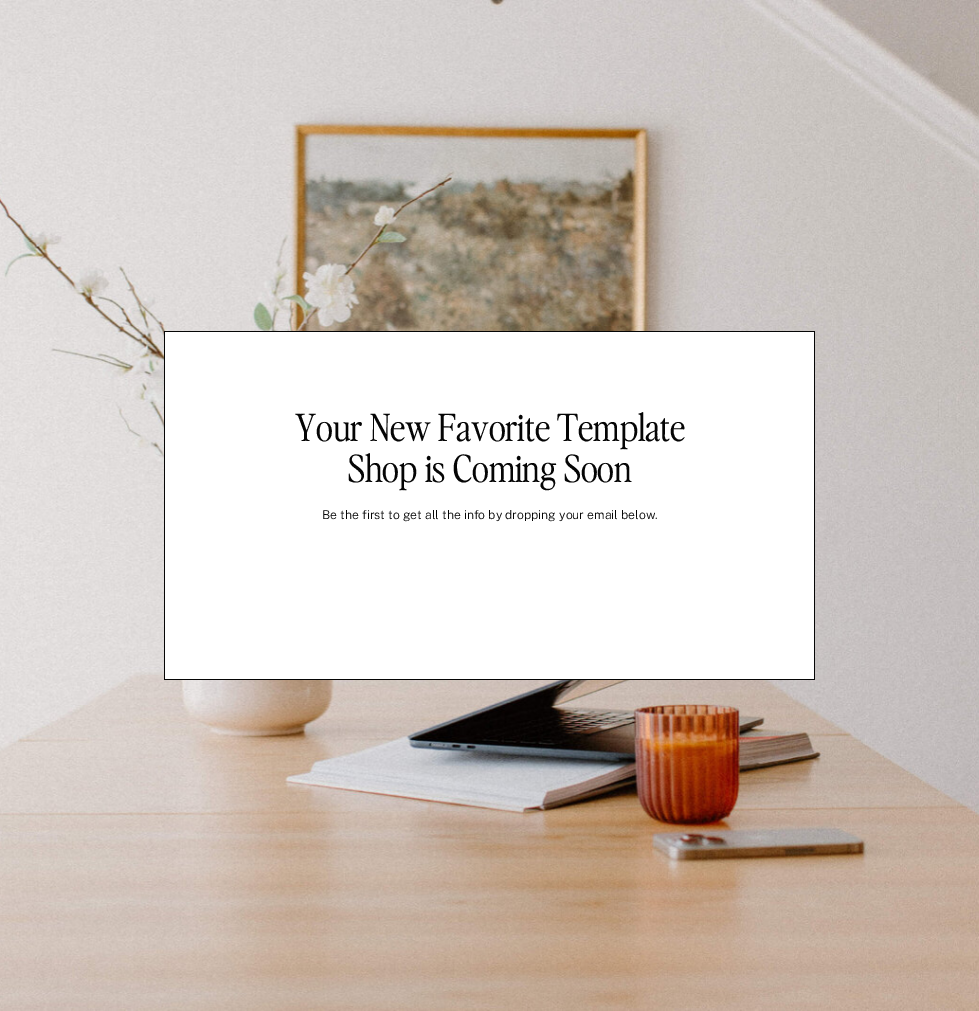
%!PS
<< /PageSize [979 1011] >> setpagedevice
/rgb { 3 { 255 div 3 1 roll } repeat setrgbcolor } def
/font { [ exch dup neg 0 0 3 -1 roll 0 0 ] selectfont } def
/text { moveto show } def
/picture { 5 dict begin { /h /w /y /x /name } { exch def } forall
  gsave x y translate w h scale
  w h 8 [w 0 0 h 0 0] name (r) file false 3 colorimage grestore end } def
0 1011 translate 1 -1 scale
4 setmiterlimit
255 255 255 rgb
0 0 979 1011 rectfill
(img_01.rgb) 0 0 979 1011 picture
164.4 331.4 moveto 650.2 0 rlineto 0 348.2 rlineto -650.2 0 rlineto closepath gsave fill grestore
5 5 5 rgb
0.8 setlinewidth
stroke
/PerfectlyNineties-Light 37.5 font
(Your New Favorite Template) 295 441 text
(Shop is Coming Soon) 348 482 text
/PublicSans-Thin 12.25 font
(Be the first to get all the info by dropping your email below.) 322 519 text
showpage
